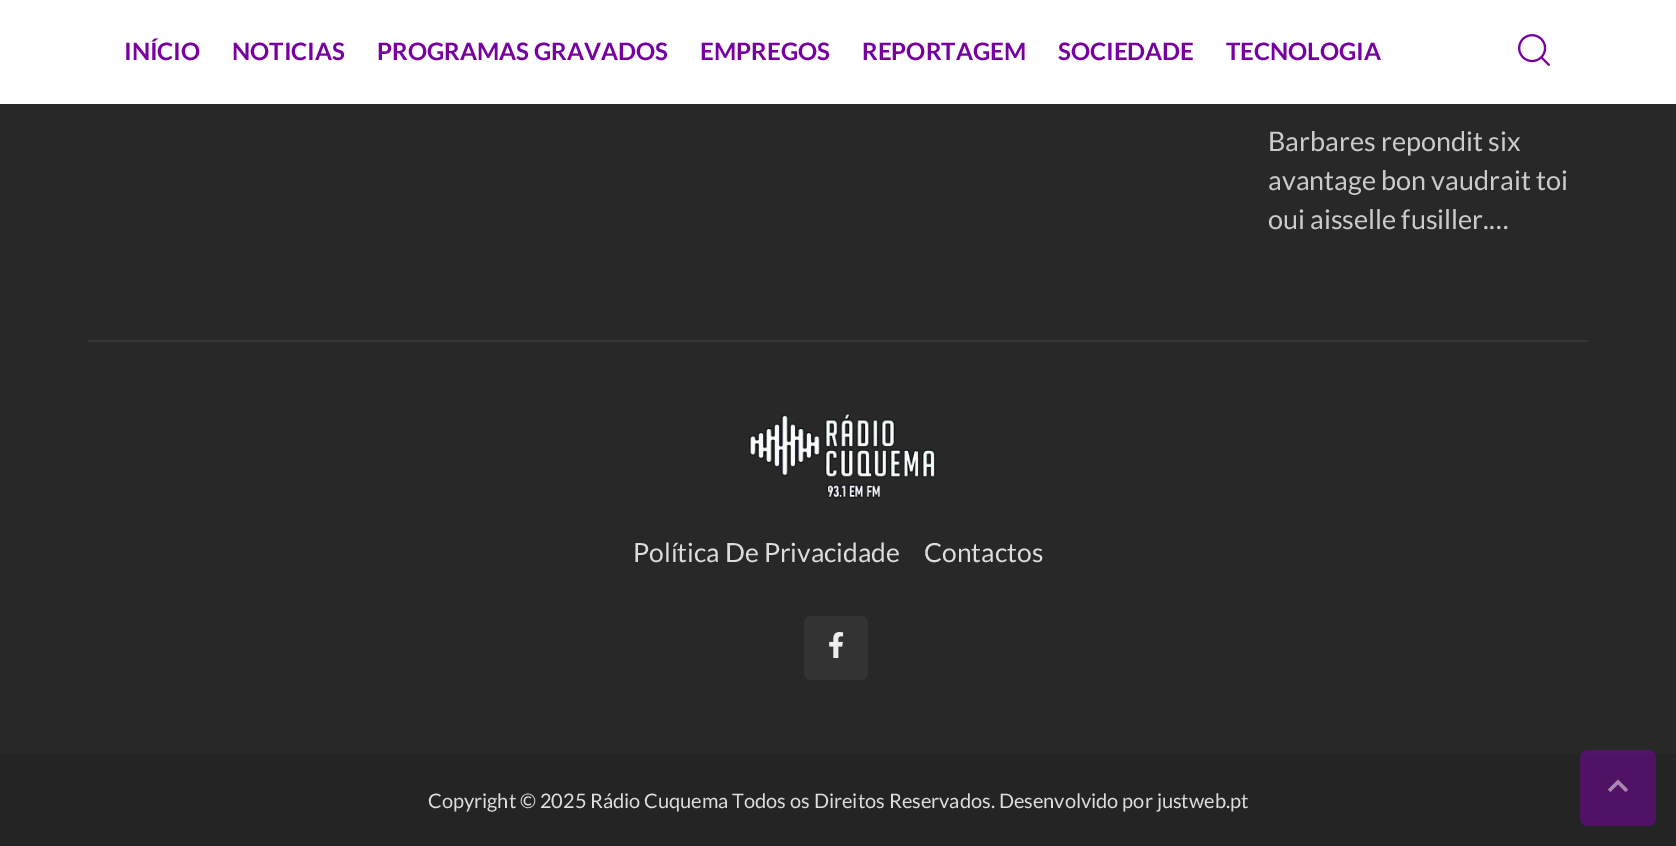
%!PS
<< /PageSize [1676 846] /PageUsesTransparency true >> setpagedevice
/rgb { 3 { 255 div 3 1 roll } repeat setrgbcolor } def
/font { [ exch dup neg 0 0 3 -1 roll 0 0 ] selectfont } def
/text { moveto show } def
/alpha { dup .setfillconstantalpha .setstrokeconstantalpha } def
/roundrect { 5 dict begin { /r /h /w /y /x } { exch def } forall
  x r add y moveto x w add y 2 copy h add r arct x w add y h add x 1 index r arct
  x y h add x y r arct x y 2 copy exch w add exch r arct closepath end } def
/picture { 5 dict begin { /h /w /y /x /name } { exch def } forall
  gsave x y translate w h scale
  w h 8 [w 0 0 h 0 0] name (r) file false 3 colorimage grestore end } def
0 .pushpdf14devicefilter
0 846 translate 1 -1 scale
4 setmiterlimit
40 40 40 rgb
0 0 1676 846 rectfill
255 255 255 rgb
0 0 1676 104 rectfill
(img_01.rgb) 1518 34 32 32 picture
55 55 55 rgb
88 340 1500 2 rectfill
(img_02.rgb) 749 413 187 86 picture
51 51 51 rgb
804 616 64 64 8 roundrect fill
(img_03.rgb) 829 632 15 26 picture
36 36 36 rgb
0 754 1676 92 rectfill
0.5 alpha
124 0 164 rgb
1580 750 76 76 8 roundrect fill
1 alpha
(img_04.rgb) 1608 779 20 13 picture
/Lato-Bold 24 font
120 0 160 rgb
(INÍCIO) 124 60 text
(NOTICIAS) 232 60 text
(PROGRAMAS GRAVADOS) 377 60 text
(EMPREGOS) 700 60 text
(REPORTAGEM) 862 60 text
(SOCIEDADE) 1058 60 text
(TECNOLOGIA) 1226 60 text
/Lato-Regular 27 font
203 203 203 rgb
(Barbares repondit six) 1268 151 text
(avantage bon vaudrait toi) 1268 190 text
(oui aisselle fusiller.…) 1268 229 text
/Lato-Regular 26.4 font
221 221 221 rgb
(Política De Privacidade) 633 562 text
(Contactos) 924 562 text
/Lato-Regular 20 font
(Copyright © 2025 Rádio Cuquema Todos os Direitos Reservados. Desenvolvido por justweb.pt) 428 808 text
.poppdf14devicefilter showpage
